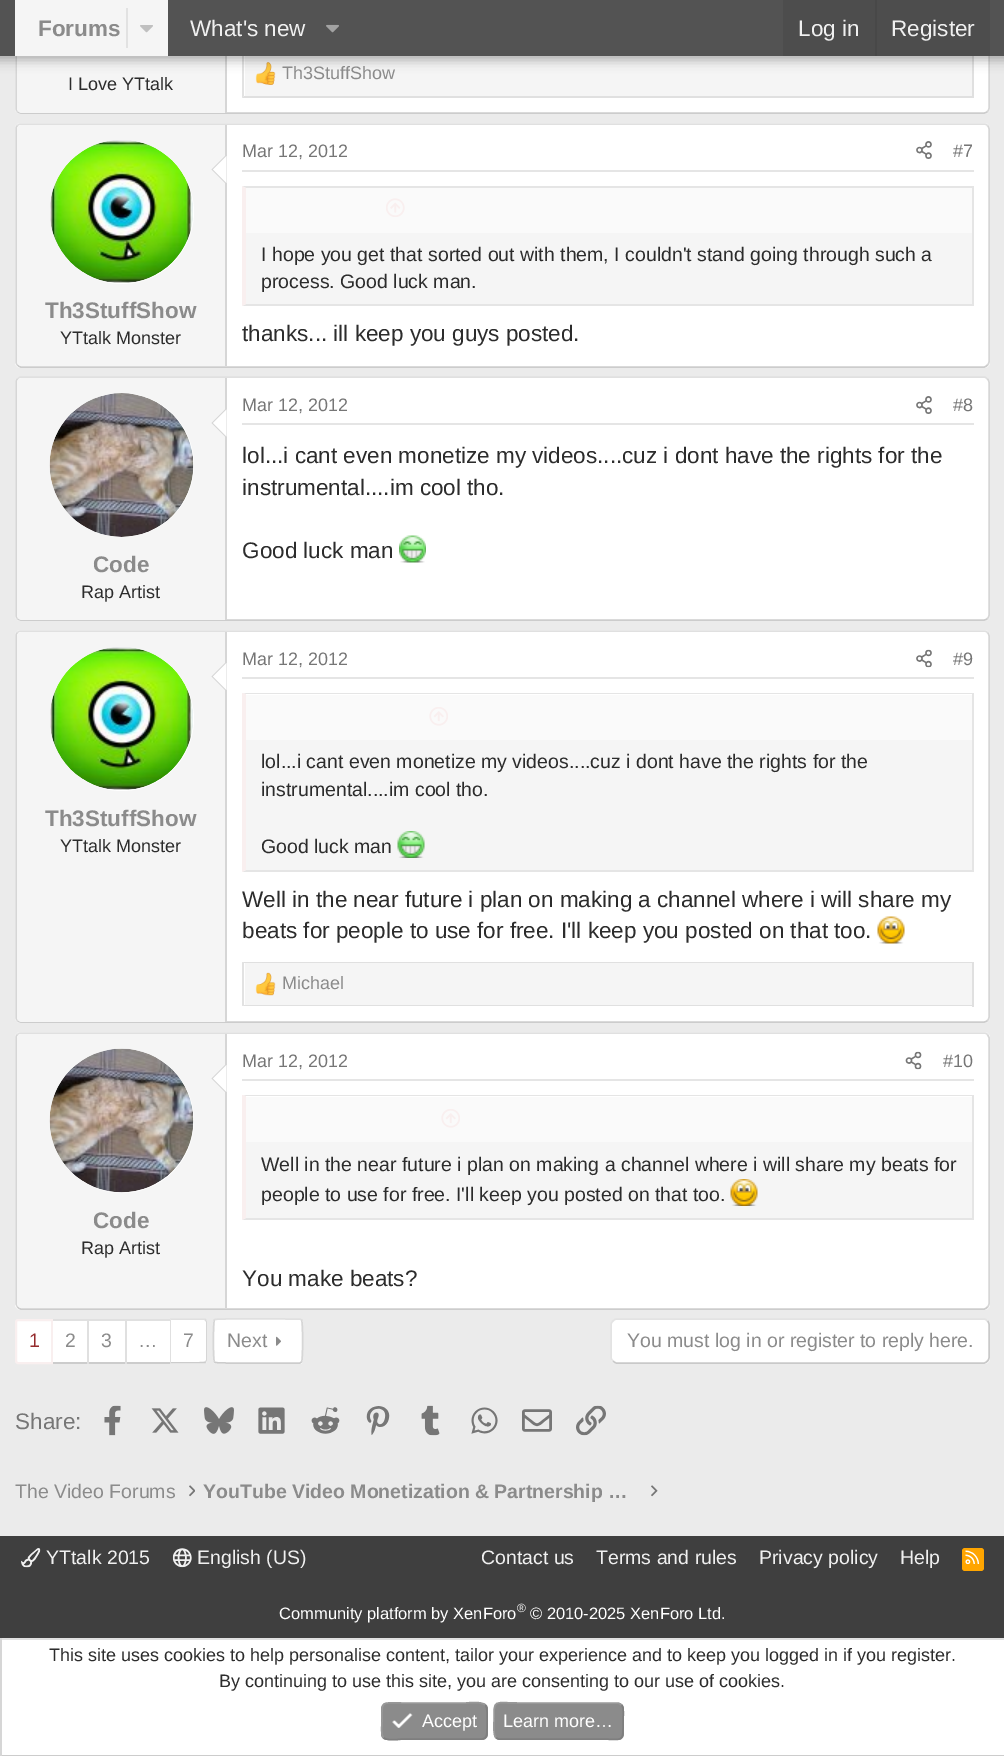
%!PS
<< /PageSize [1004 1756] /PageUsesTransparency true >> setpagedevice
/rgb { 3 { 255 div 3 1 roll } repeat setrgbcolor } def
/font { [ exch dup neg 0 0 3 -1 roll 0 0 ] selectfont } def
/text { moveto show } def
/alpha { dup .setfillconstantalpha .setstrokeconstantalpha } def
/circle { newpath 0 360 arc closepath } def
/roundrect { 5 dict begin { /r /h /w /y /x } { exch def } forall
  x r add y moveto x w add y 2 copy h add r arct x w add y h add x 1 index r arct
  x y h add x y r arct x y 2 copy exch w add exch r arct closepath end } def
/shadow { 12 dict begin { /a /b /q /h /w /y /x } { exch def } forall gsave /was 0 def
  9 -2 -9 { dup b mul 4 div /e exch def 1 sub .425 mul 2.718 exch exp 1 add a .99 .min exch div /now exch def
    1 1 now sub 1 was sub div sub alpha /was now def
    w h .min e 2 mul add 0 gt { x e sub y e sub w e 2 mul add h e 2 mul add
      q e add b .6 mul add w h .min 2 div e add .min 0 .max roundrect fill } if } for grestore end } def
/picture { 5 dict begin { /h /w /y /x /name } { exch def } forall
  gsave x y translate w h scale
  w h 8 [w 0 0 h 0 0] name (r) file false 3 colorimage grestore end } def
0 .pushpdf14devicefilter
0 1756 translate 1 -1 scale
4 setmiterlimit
235 235 235 rgb
0 0 1004 1756 rectfill
255 255 255 rgb
15 -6 975 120 6 roundrect fill
214 214 214 rgb
1.5 setlinewidth
987.5 -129.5 moveto 1 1 1.5 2 1.5 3.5 rcurveto 0 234 rlineto 0 1.5 -0.5 2.5 -1.5 3.5 rcurveto stroke
204 204 204 rgb
987.5 111.5 moveto -1 1 -2 1.5 -3.5 1.5 rcurveto -963 0 rlineto -1.5 0 -2.5 -0.5 -3.5 -1.5 rcurveto stroke
214 214 214 rgb
17.5 111.5 moveto -1 -1 -1.5 -2 -1.5 -3.5 rcurveto 0 -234 rlineto 0 -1.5 0.5 -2.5 1.5 -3.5 rcurveto stroke
245 245 245 rgb
245 56 727 40 rectfill
224 224 224 rgb
972 51 2 47 rectfill
974 98 moveto -732 0 rlineto 2 -2 rlineto 728 0 rlineto closepath fill
226 226 226 rgb
242 98 moveto 0 -47 rlineto 2 1 rlineto 0 44 rlineto closepath fill
(img_03.rgb) 255 62 21 23 picture
245 245 245 rgb
22 -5 moveto 205 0 rlineto 0 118 rlineto -205 0 rlineto -3 0 -5 -2 -5 -5 rcurveto 0 -108 rlineto 0 -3 2 -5 5 -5 rcurveto closepath fill
214 214 214 rgb
225 56 2 57 rectfill
0 0 0 rgb
-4 -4 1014 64 0 6 0.3 shadow
83 83 83 rgb
0 0 1004 56 rectfill
245 245 245 rgb
15 0 153 56 rectfill
226 226 226 rgb
126 8 2 40 rectfill
(img_01.rgb) 140 25 13 8 picture
(img_02.rgb) 326 24 13 9 picture
77 77 77 rgb
783 0 207 56 rectfill
72 72 72 rgb
875 0 2 56 rectfill
255 255 255 rgb
15 123 975 245 6 roundrect fill
224 224 224 rgb
17.5 125.5 moveto 1 -1 2 -1.5 3.5 -1.5 rcurveto 963 0 rlineto 1.5 0 2.5 0.5 3.5 1.5 rcurveto stroke
214 214 214 rgb
987.5 125.5 moveto 1 1 1.5 2 1.5 3.5 rcurveto 0 232.5 rlineto 0 1.5 -0.5 2.5 -1.5 3.5 rcurveto stroke
204 204 204 rgb
987.5 365 moveto -1 1 -2 2 -3.5 2 rcurveto -963 0 rlineto -1.5 0 -2.5 -1 -3.5 -2 rcurveto stroke
214 214 214 rgb
17.5 365 moveto -1 -1 -1.5 -2 -1.5 -3.5 rcurveto 0 -232.5 rlineto 0 -1.5 0.5 -2.5 1.5 -3.5 rcurveto stroke
245 245 245 rgb
22 125 moveto 205 0 rlineto 0 241 rlineto -205 0 rlineto -3 0 -5 -2 -5 -5 rcurveto 0 -231 rlineto 0 -3 2 -5 5 -5 rcurveto closepath fill
214 214 214 rgb
225 125 2 241 rectfill
255 255 255 rgb
122 212 72 circle fill
(img_04.rgb) 50 140 143 143 picture
214 214 214 rgb
226.5 154.5 moveto 0 30 rlineto -15 -15 rlineto closepath fill
255 255 255 rgb
226.5 156 moveto 0 27 rlineto -13.5 -13.5 rlineto closepath fill
229 229 229 rgb
242 170 732 2 rectfill
(img_05.rgb) 916 141 16 18 picture
245 245 245 rgb
246 233 726 71 rectfill
229 229 229 rgb
242 186 moveto 732 0 rlineto -2 2 rlineto -726 0 rlineto closepath fill
972 186 2 120 rectfill
974 306 moveto -732 0 rlineto 4 -2 rlineto 726 0 rlineto closepath fill
249 239 239 rgb
242 306 moveto 0 -120 rlineto 4 2 rlineto 0 116 rlineto closepath fill
250 250 250 rgb
246 188 726 45 rectfill
(img_06.rgb) 386 198 19 19 picture
255 255 255 rgb
15 377 975 244 6 roundrect fill
224 224 224 rgb
17.5 379 moveto 1 -1 2 -2 3.5 -2 rcurveto 963 0 rlineto 1.5 0 2.5 1 3.5 2 rcurveto stroke
214 214 214 rgb
987.5 379 moveto 1 1 1.5 2 1.5 3.5 rcurveto 0 232.5 rlineto 0 1.5 -0.5 2.5 -1.5 3.5 rcurveto stroke
204 204 204 rgb
987.5 618.5 moveto -1 1 -2 1.5 -3.5 1.5 rcurveto -963 0 rlineto -1.5 0 -2.5 -0.5 -3.5 -1.5 rcurveto stroke
214 214 214 rgb
17.5 618.5 moveto -1 -1 -1.5 -2 -1.5 -3.5 rcurveto 0 -232.5 rlineto 0 -1.5 0.5 -2.5 1.5 -3.5 rcurveto stroke
229 229 229 rgb
242 423 732 2 rectfill
(img_05.rgb) 916 396 16 18 picture
(img_07.rgb) 399 535 27 28 picture
245 245 245 rgb
22 378 moveto 205 0 rlineto 0 242 rlineto -205 0 rlineto -3 0 -5 -2 -5 -5 rcurveto 0 -232 rlineto 0 -3 2 -5 5 -5 rcurveto closepath fill
214 214 214 rgb
225 378 2 242 rectfill
255 255 255 rgb
122 465 72 circle fill
(img_08.rgb) 49 393 145 144 picture
214 214 214 rgb
226.5 408 moveto 0 30 rlineto -15 -15 rlineto closepath fill
255 255 255 rgb
226.5 409.5 moveto 0 27 rlineto -13.5 -13.5 rlineto closepath fill
15 630 975 393 6 roundrect fill
224 224 224 rgb
17.5 632.5 moveto 1 -1 2 -1.5 3.5 -1.5 rcurveto 963 0 rlineto 1.5 0 2.5 0.5 3.5 1.5 rcurveto stroke
214 214 214 rgb
987.5 632.5 moveto 1 1 1.5 2 1.5 3.5 rcurveto 0 381 rlineto 0 1.5 -0.5 2.5 -1.5 3.5 rcurveto stroke
204 204 204 rgb
987.5 1020.5 moveto -1 1 -2 1.5 -3.5 1.5 rcurveto -963 0 rlineto -1.5 0 -2.5 -0.5 -3.5 -1.5 rcurveto stroke
214 214 214 rgb
17.5 1020.5 moveto -1 -1 -1.5 -2 -1.5 -3.5 rcurveto 0 -381 rlineto 0 -1.5 0.5 -2.5 1.5 -3.5 rcurveto stroke
245 245 245 rgb
22 632 moveto 205 0 rlineto 0 390 rlineto -205 0 rlineto -3 0 -5 -2 -5 -5 rcurveto 0 -380 rlineto 0 -3 2 -5 5 -5 rcurveto closepath fill
214 214 214 rgb
225 632 2 390 rectfill
255 255 255 rgb
122 719 72 circle fill
(img_04.rgb) 50 647 143 143 picture
214 214 214 rgb
226.5 661.5 moveto 0 30 rlineto -15 -15 rlineto closepath fill
255 255 255 rgb
226.5 663 moveto 0 27 rlineto -13.5 -13.5 rlineto closepath fill
229 229 229 rgb
242 677 732 2 rectfill
(img_09.rgb) 916 649 16 19 picture
245 245 245 rgb
246 740 726 130 rectfill
229 229 229 rgb
242 693 moveto 732 0 rlineto -2 1 rlineto -726 0 rlineto closepath fill
972 693 2 179 rectfill
974 872 moveto -732 0 rlineto 4 -2 rlineto 726 0 rlineto closepath fill
249 239 239 rgb
242 872 moveto 0 -179 rlineto 4 1 rlineto 0 176 rlineto closepath fill
250 250 250 rgb
246 695 726 45 rectfill
(img_10.rgb) 429 707 19 19 picture
(img_11.rgb) 397 831 28 27 picture
(img_12.rgb) 877 916 28 28 picture
245 245 245 rgb
245 963 727 42 rectfill
224 224 224 rgb
242 962 moveto 732 0 rlineto -2 1 rlineto -728 0 rlineto closepath fill
972 962 2 45 rectfill
974 1006 moveto -732 0 rlineto 2 -1 rlineto 728 0 rlineto closepath fill
226 226 226 rgb
242 1006 moveto 0 -44 rlineto 2 1 rlineto 0 42 rlineto closepath fill
(img_13.rgb) 255 972 21 24 picture
255 255 255 rgb
15 1032 975 278 6 roundrect fill
224 224 224 rgb
17.5 1034.5 moveto 1 -1 2 -1.5 3.5 -1.5 rcurveto 963 0 rlineto 1.5 0 2.5 0.5 3.5 1.5 rcurveto stroke
214 214 214 rgb
987.5 1034.5 moveto 1.5 3 rlineto 0 266 rlineto 0 1.5 -0.5 2.5 -1.5 3.5 rcurveto stroke
204 204 204 rgb
987.5 1307 moveto -1 1 -2 2 -3.5 2 rcurveto -963 0 rlineto -1.5 0 -2.5 -1 -3.5 -2 rcurveto stroke
214 214 214 rgb
17.5 1307 moveto -1.5 -3 rlineto 0 -266 rlineto 0 -1.5 0.5 -2.5 1.5 -3.5 rcurveto stroke
245 245 245 rgb
22 1034 moveto 205 0 rlineto 0 274 rlineto -205 0 rlineto -3 0 -5 -2 -5 -5 rcurveto 0 -264 rlineto 0 -3 2 -5 5 -5 rcurveto closepath fill
214 214 214 rgb
225 1034 2 274 rectfill
255 255 255 rgb
122 1121 72 circle fill
(img_14.rgb) 49 1048 145 145 picture
214 214 214 rgb
226.5 1063.5 moveto 0 30 rlineto -15 -15 rlineto closepath fill
255 255 255 rgb
226.5 1065 moveto 0 27 rlineto -13.5 -13.5 rlineto closepath fill
229 229 229 rgb
242 1079 732 2 rectfill
(img_15.rgb) 905 1051 17 19 picture
245 245 245 rgb
246 1142 726 76 rectfill
229 229 229 rgb
242 1095 moveto 732 0 rlineto -2 1 rlineto -726 0 rlineto closepath fill
972 1095 2 125 rectfill
974 1220 moveto -732 0 rlineto 4 -2 rlineto 726 0 rlineto closepath fill
249 239 239 rgb
242 1220 moveto 0 -125 rlineto 4 1 rlineto 0 122 rlineto closepath fill
250 250 250 rgb
246 1097 726 45 rectfill
(img_10.rgb) 441 1109 19 19 picture
(img_16.rgb) 730 1179 28 27 picture
255 255 255 rgb
18 1320 moveto 34 0 rlineto 0 43 rlineto -34 0 rlineto -1 0 -2 -1 -2 -2 rcurveto 0 -39 rlineto 0 -1 1 -2 2 -2 rcurveto closepath gsave fill grestore
249 239 239 rgb
2 setlinewidth
stroke
255 255 255 rgb
53 1321 34 41 rectfill
224 224 224 rgb
53 1319 117 2 rectfill
204 204 204 rgb
53 1362 117 2 rectfill
255 255 255 rgb
89 1321 36 41 rectfill
224 224 224 rgb
87 1319 2 45 rectfill
255 255 255 rgb
127 1321 43 41 rectfill
224 224 224 rgb
125 1319 2 45 rectfill
255 255 255 rgb
170 1319 moveto 34 0 rlineto 1.5 0 3 1.5 3 3 rcurveto 0 39 rlineto 0 1.5 -1.5 3 -3 3 rcurveto -34 0 rlineto closepath fill
224 224 224 rgb
171 1320 moveto -1 -1 rlineto 0 -0.5 rlineto 35.5 0 rlineto 0.5 0.5 rlineto -1 1.5 rlineto -1 -0.5 rlineto closepath fill
214 214 214 rgb
207 1360 moveto 0 -38 rlineto -1 -3 rlineto -1 1 rlineto 1 2 rlineto 0 38 rlineto -1 2 rlineto 1 1 rlineto closepath fill
204 204 204 rgb
170 1363.5 moveto 0 -0.5 rlineto 1 -1 rlineto 4 0 32.5 0.5 34 -0.5 rcurveto 1 1.5 rlineto -0.5 0.5 rlineto closepath fill
224 224 224 rgb
171 1320 moveto 0 42 rlineto -1 1 rlineto 0 -44 rlineto closepath fill
255 255 255 rgb
213 1319 90 45 3 roundrect fill
224 224 224 rgb
1.5 setlinewidth
214.5 1320 moveto 0.5 -0.5 rlineto 1.5 -1 63.5 -0.5 71 -0.5 rcurveto 14 0 rlineto 1.5 1 rlineto stroke
214 214 214 rgb
301.5 1320 moveto 1.5 1 1.5 41 0 42 rcurveto stroke
204 204 204 rgb
301.5 1362 moveto -1.5 1 rlineto -14 0 rlineto -7.5 0 -69.5 0.5 -71 -0.5 rcurveto -0.5 -0.5 rlineto stroke
214 214 214 rgb
214.5 1362 moveto -1.5 -1 -1.5 -41 0 -42 rcurveto stroke
(img_17.rgb) 276 1336 5 10 picture
255 255 255 rgb
611 1319 379 45 6 roundrect fill
201 201 201 rgb
987.5 1321 moveto 1 1 1.5 2 1.5 3.5 rcurveto 0 33 rlineto 0 1.5 -0.5 2.5 -1.5 3.5 rcurveto -1 1 -2 2 -3.5 2 rcurveto -367.5 0 rlineto -1.5 0 -2.5 -1 -3.5 -2 rcurveto stroke
227 227 227 rgb
613 1361 moveto -1 -1 -2 -2 -2 -3.5 rcurveto 0 -33 rlineto 0 -1.5 1 -2.5 2 -3.5 rcurveto 1 -1 2 -2 3.5 -2 rcurveto 367.5 0 rlineto 1.5 0 2.5 1 3.5 2 rcurveto stroke
(img_18.rgb) 104 1405 17 31 picture
(img_19.rgb) 151 1408 28 25 picture
(img_20.rgb) 204 1407 30 27 picture
(img_21.rgb) 258 1407 27 27 picture
(img_22.rgb) 311 1407 29 27 picture
(img_23.rgb) 366 1406 24 29 picture
(img_24.rgb) 421 1405 19 31 picture
(img_25.rgb) 471 1407 27 27 picture
(img_26.rgb) 522 1409 30 23 picture
(img_27.rgb) 576 1405 30 31 picture
(img_28.rgb) 189 1485 6 12 picture
(img_29.rgb) 651 1485 7 12 picture
63 63 63 rgb
0 1536 1004 102 rectfill
(img_30.rgb) 21 1548 20 20 picture
(img_31.rgb) 172 1548 20 20 picture
255 165 0 rgb
962 1548 22 23 3 roundrect fill
(img_32.rgb) 965 1550 15 14 picture
255 255 255 rgb
2 1640 1002 115 rectfill
224 224 224 rgb
0 1638 1004 2 rectfill
204 204 204 rgb
0 1755 1004 1 rectfill
214 214 214 rgb
0 1638 2 118 rectfill
139 139 139 rgb
381 1703 107 37 6 roundrect fill
126 126 126 rgb
485 1705 moveto 3 2.5 2 12.5 2 16 rcurveto 0 21.5 1.5 18 -21 18 rcurveto -63 0 rlineto -2 0 -16 2.5 -19.5 -1.5 rcurveto stroke
152 152 152 rgb
383.5 1737.5 moveto -3 -2.5 -1.5 -12.5 -1.5 -16.5 rcurveto 0 -21 -2 -18 21 -18 rcurveto 63 0 rlineto 1.5 0 15.5 -2 19 2 rcurveto stroke
(img_33.rgb) 392 1713 21 15 picture
139 139 139 rgb
494 1703 130 37 6 roundrect fill
126 126 126 rgb
621.5 1705 moveto 3 2.5 1.5 12.5 1.5 16 rcurveto 0 23 1.5 18 -25 18 rcurveto -98.5 0 rlineto -1.5 0 -2.5 -0.5 -3.5 -1.5 rcurveto stroke
152 152 152 rgb
496 1737.5 moveto -3 -2.5 -2 -12.5 -2 -16.5 rcurveto 0 -22.5 -1 -18 25 -18 rcurveto 99 0 rlineto 1.5 0.5 2.5 1 3.5 2 rcurveto stroke
/LiberationSans-Bold 22.5 font
139 139 139 rgb
(Forums) 38 36 text
/LiberationSans-Regular 22.5 font
240 240 240 rgb
(What's new) 190 36 text
(Log in) 798 36 text
(Register) 891 36 text
/LiberationSans-Regular 18 font
139 139 139 rgb
(Th3StuffShow) 282 79 text
44 44 44 rgb
(I Love YTtalk) 68 90 text
/LiberationSans-Bold 22.5 font
139 139 139 rgb
(Th3StuffShow) 45 318 text
/LiberationSans-Regular 18 font
44 44 44 rgb
(YTtalk Monster) 60 344 text
118 118 118 rgb
(Mar 12, 2012) 242 157 text
(#7) 953 157 text
/LiberationSans-Regular 19.5 font
44 44 44 rgb
(I hope you get that sorted out with them, I couldn't stand going through such a) 261 261 text
(process. Good luck man.) 261 288 text
/LiberationSans-Regular 22.5 font
(thanks... ill keep you guys posted.) 242 341 text
/LiberationSans-Regular 18 font
118 118 118 rgb
(Mar 12, 2012) 242 411 text
(#8) 953 411 text
/LiberationSans-Regular 22.5 font
44 44 44 rgb
(lol...i cant even monetize my videos....cuz i dont have the rights for the) 242 463 text
(instrumental....im cool tho.) 242 495 text
(Good luck man) 242 558 text
/LiberationSans-Bold 22.5 font
139 139 139 rgb
(Code) 93 572 text
/LiberationSans-Regular 18 font
44 44 44 rgb
(Rap Artist) 81 598 text
/LiberationSans-Bold 22.5 font
139 139 139 rgb
(Th3StuffShow) 45 826 text
/LiberationSans-Regular 18 font
44 44 44 rgb
(YTtalk Monster) 60 852 text
118 118 118 rgb
(Mar 12, 2012) 242 665 text
(#9) 953 665 text
/LiberationSans-Regular 19.5 font
44 44 44 rgb
(lol...i cant even monetize my videos....cuz i dont have the rights for the) 261 768 text
(instrumental....im cool tho.) 261 796 text
(Good luck man) 261 853 text
/LiberationSans-Regular 22.5 font
(Well in the near future i plan on making a channel where i will share my) 242 907 text
(beats for people to use for free. I'll keep you posted on that too.) 242 938 text
/LiberationSans-Regular 18 font
139 139 139 rgb
(Michael) 282 989 text
/LiberationSans-Bold 22.5 font
(Code) 93 1228 text
/LiberationSans-Regular 18 font
44 44 44 rgb
(Rap Artist) 81 1254 text
118 118 118 rgb
(Mar 12, 2012) 242 1067 text
(#10) 943 1067 text
/LiberationSans-Regular 19.5 font
44 44 44 rgb
(Well in the near future i plan on making a channel where i will share my beats for) 261 1171 text
(people to use for free. I'll keep you posted on that too.) 261 1201 text
/LiberationSans-Regular 22.5 font
(You make beats?) 242 1286 text
/LiberationSans-Regular 19.5 font
149 43 45 rgb
(1) 29 1347 text
139 139 139 rgb
(2) 65 1347 text
(3) 101 1347 text
(…) 138 1347 text
(7) 183 1347 text
(Next) 227 1347 text
(You must log in or register to reply here.) 627 1347 text
/LiberationSans-Regular 22.5 font
118 118 118 rgb
(Share:) 15 1429 text
/LiberationSans-Regular 19.5 font
139 139 139 rgb
(The Video Forums) 15 1498 text
/LiberationSans-Bold 19.5 font
(YouTube Video Monetization & Partnership …) 203 1498 text
/LiberationSans-Regular 19.5 font
240 240 240 rgb
(YTtalk 2015) 46 1564 text
(English \(US\)) 197 1564 text
(Contact us) 481 1564 text
(Terms and rules) 596 1564 text
(Privacy policy) 759 1564 text
(Help) 900 1564 text
/LiberationSans-Regular 16.5 font
255 255 255 rgb
(Community platform by XenForo) 279 1619 text
/LiberationSans-Regular 12 font
(®) 517 1612 text
/LiberationSans-Regular 16.5 font
(© 2010-2025 XenForo Ltd.) 530 1619 text
/LiberationSans-Regular 18 font
44 44 44 rgb
(This site uses cookies to help personalise content, tailor your experience and to keep you logged in if you register.) 49 1661 text
(By continuing to use this site, you are consenting to our use of cookies.) 219 1687 text
255 255 255 rgb
(Accept) 422 1727 text
(Learn more…) 503 1727 text
.poppdf14devicefilter showpage
